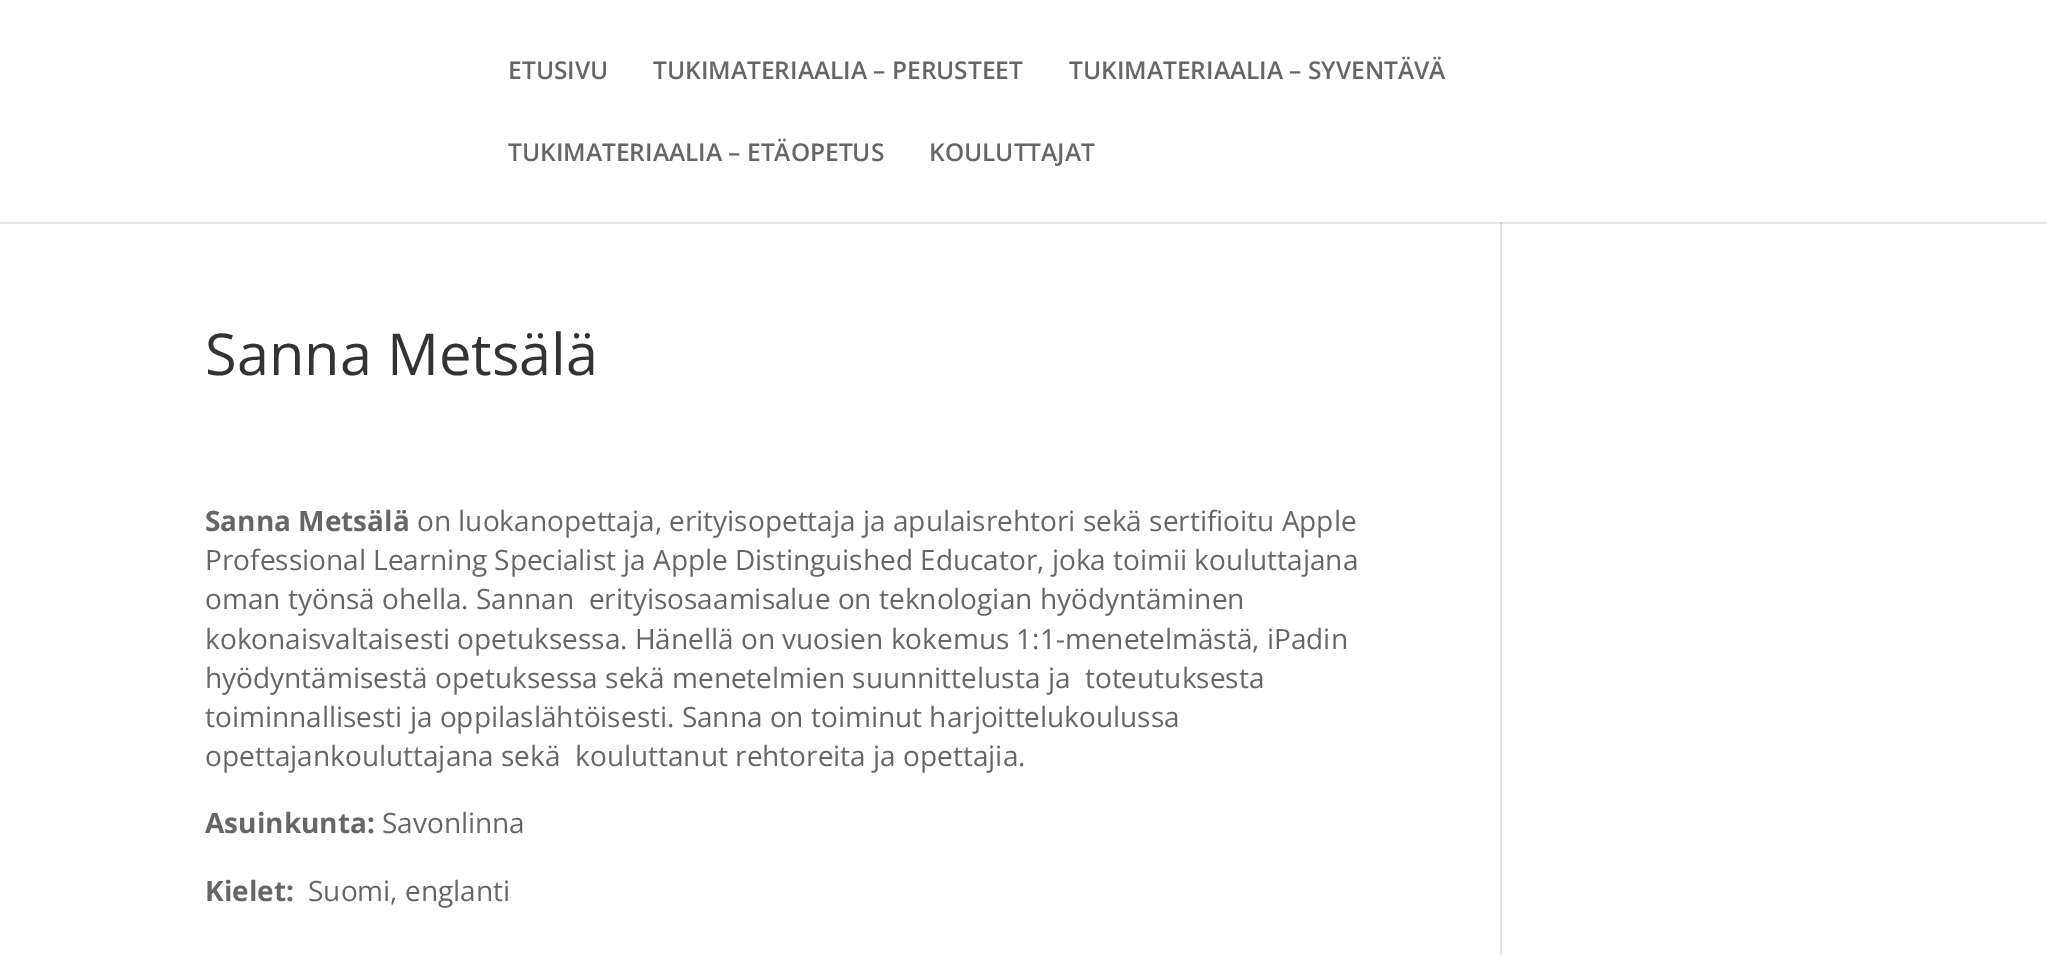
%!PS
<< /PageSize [2047 955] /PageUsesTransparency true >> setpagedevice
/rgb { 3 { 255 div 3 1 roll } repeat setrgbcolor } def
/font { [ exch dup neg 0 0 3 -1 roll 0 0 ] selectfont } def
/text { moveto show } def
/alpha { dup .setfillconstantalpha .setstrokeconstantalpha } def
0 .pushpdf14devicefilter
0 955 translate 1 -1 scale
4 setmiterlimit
255 255 255 rgb
0 0 2047 955 rectfill
226 226 226 rgb
1500 222 2 733 rectfill
0.1 alpha
0 0 0 rgb
0 222 moveto 0 2 rlineto 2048 0 rlineto 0 -222 rlineto 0 220 rlineto closepath fill
/OpenSans-SemiBold 24.5 font
1 alpha
102 102 102 rgb
(ETUSIVU) 508 79 text
(TUKIMATERIAALIA – PERUSTEET) 653 79 text
(TUKIMATERIAALIA – SYVENTÄVÄ) 1069 79 text
(TUKIMATERIAALIA – ETÄOPETUS) 508 161 text
(KOULUTTAJAT) 929 161 text
/OpenSans-Regular 57.75 font
51 51 51 rgb
(Sanna Metsälä) 205 375 text
/OpenSans-Bold 28 font
102 102 102 rgb
(Sanna Metsälä) 205 531 text
/OpenSans-Regular 28 font
(on luokanopettaja, erityisopettaja ja apulaisrehtori sekä sertifioitu Apple) 417 531 text
(Professional Learning Specialist ja Apple Distinguished Educator, joka toimii kouluttajana) 205 570 text
(oman työnsä ohella. Sannan  erityisosaamisalue on teknologian hyödyntäminen) 205 609 text
(kokonaisvaltaisesti opetuksessa. Hänellä on vuosien kokemus 1:1-menetelmästä, iPadin) 205 649 text
(hyödyntämisestä opetuksessa sekä menetelmien suunnittelusta ja  toteutuksesta) 205 688 text
(toiminnallisesti ja oppilaslähtöisesti. Sanna on toiminut harjoittelukoulussa) 205 727 text
(opettajankouluttajana sekä  kouluttanut rehtoreita ja opettajia.) 205 766 text
/OpenSans-Bold 28 font
(Asuinkunta:) 205 833 text
/OpenSans-Regular 28 font
(Savonlinna) 382 833 text
/OpenSans-Bold 28 font
(Kielet:) 205 901 text
/OpenSans-Regular 28 font
(Suomi, englanti) 308 901 text
.poppdf14devicefilter showpage
